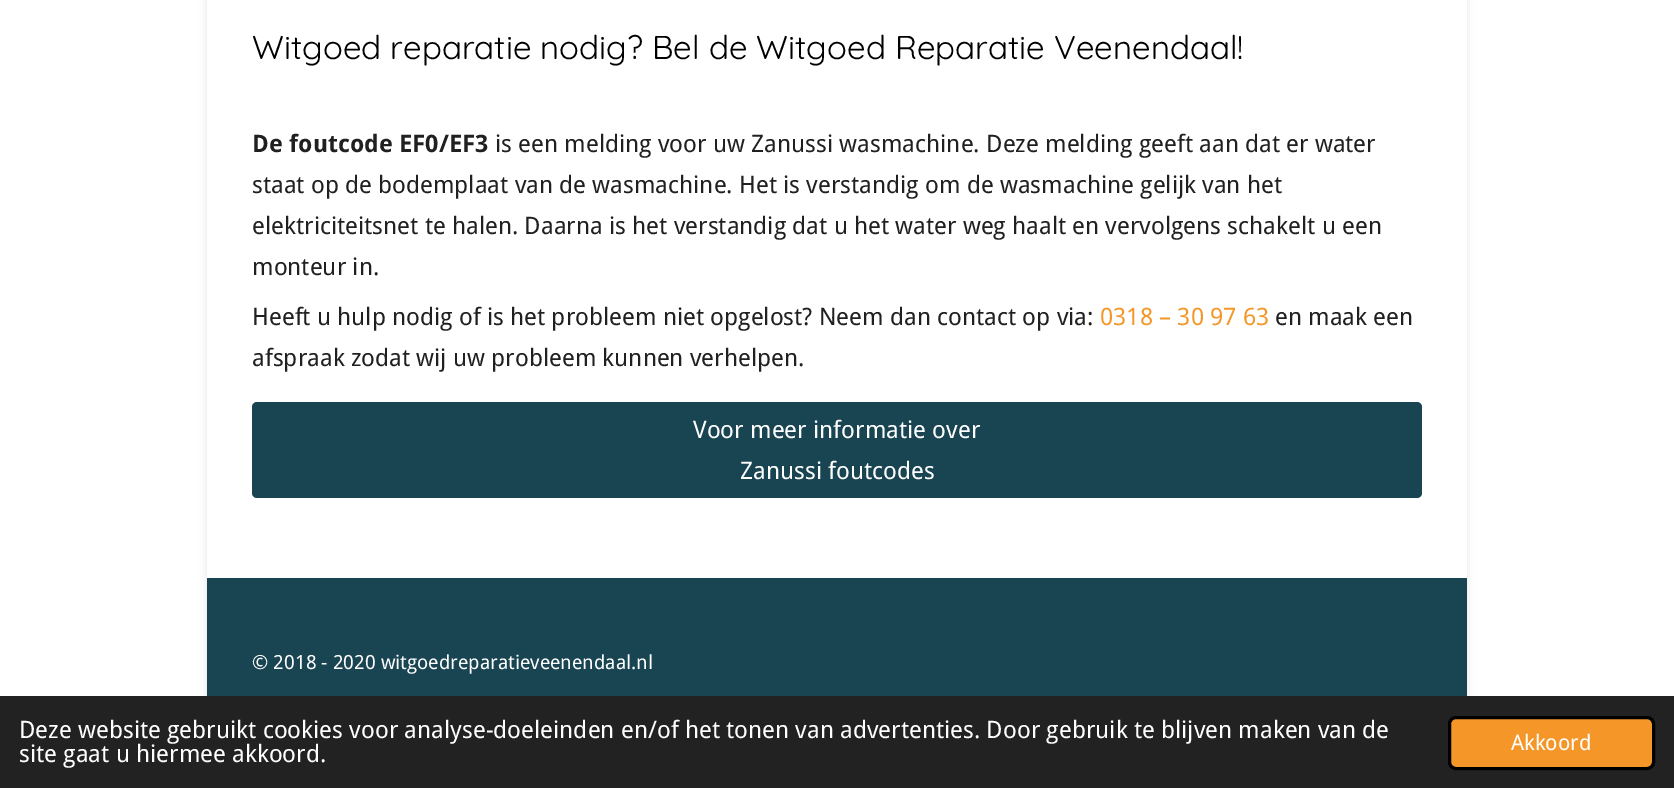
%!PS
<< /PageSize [1674 788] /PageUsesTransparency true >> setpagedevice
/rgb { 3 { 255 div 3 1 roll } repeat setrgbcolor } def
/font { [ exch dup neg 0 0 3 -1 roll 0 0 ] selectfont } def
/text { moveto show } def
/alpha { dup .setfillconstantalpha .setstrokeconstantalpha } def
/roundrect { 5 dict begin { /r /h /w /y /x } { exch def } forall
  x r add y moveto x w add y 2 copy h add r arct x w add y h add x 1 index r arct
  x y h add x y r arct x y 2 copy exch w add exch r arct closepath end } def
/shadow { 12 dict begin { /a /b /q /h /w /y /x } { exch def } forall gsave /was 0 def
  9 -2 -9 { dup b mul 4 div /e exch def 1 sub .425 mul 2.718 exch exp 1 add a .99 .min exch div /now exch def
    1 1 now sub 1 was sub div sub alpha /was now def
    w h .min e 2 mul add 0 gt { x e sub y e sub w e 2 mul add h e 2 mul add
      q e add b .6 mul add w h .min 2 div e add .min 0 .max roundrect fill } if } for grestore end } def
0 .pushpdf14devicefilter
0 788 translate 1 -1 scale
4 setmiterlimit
255 255 255 rgb
0 0 1674 788 rectfill
gsave
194 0 moveto 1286 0 rlineto 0 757 rlineto -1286 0 rlineto closepath 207 -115 moveto 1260 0 rlineto 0 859 rlineto -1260 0 rlineto closepath eoclip newpath
0 0 0 rgb
207 -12 1260 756 0 4 0.1 shadow
grestore
25 68 82 rgb
252 402 1170 96 5 roundrect fill
207 578 1260 118 rectfill
34 34 34 rgb
0 696 1674 92 rectfill
244 151 40 rgb
1449.5 717.5 204 51 6.5 roundrect gsave fill grestore
0 0 0 rgb
3 setlinewidth
stroke
/Quicksand-Regular 33 font
(Witgoed reparatie nodig? Bel de Witgoed Reparatie Veenendaal!) 252 59 text
/DroidSans-Bold 24 font
32 32 32 rgb
(De foutcode EF0/EF3) 252 152 text
/DroidSans-Regular 24 font
(is een melding voor uw Zanussi wasmachine. Deze melding geeft aan dat er water) 495 152 text
(staat op de bodemplaat van de wasmachine. Het is verstandig om de wasmachine gelijk van het) 252 193 text
(elektriciteitsnet te halen. Daarna is het verstandig dat u het water weg haalt en vervolgens schakelt u een) 252 234 text
(monteur in.) 252 275 text
(Heeft u hulp nodig of is het probleem niet opgelost? Neem dan contact op via:) 252 325 text
244 151 40 rgb
(0318 – 30 97 63) 1100 325 text
32 32 32 rgb
(en maak een) 1275 325 text
(afspraak zodat wij uw probleem kunnen verhelpen.) 252 366 text
255 255 255 rgb
(Voor meer informatie over) 693 438 text
(Zanussi foutcodes) 740 479 text
/DroidSans-Regular 19.5 font
(© 2018 - 2020 witgoedreparatieveenendaal.nl) 252 669 text
/DroidSans-Regular 24 font
(Deze website gebruikt cookies voor analyse-doeleinden en/of het tonen van advertenties. Door gebruik te blijven maken van de) 19 738 text
(site gaat u hiermee akkoord.) 19 762 text
/DroidSans-Regular 21.5 font
(Akkoord) 1511 750 text
.poppdf14devicefilter showpage
